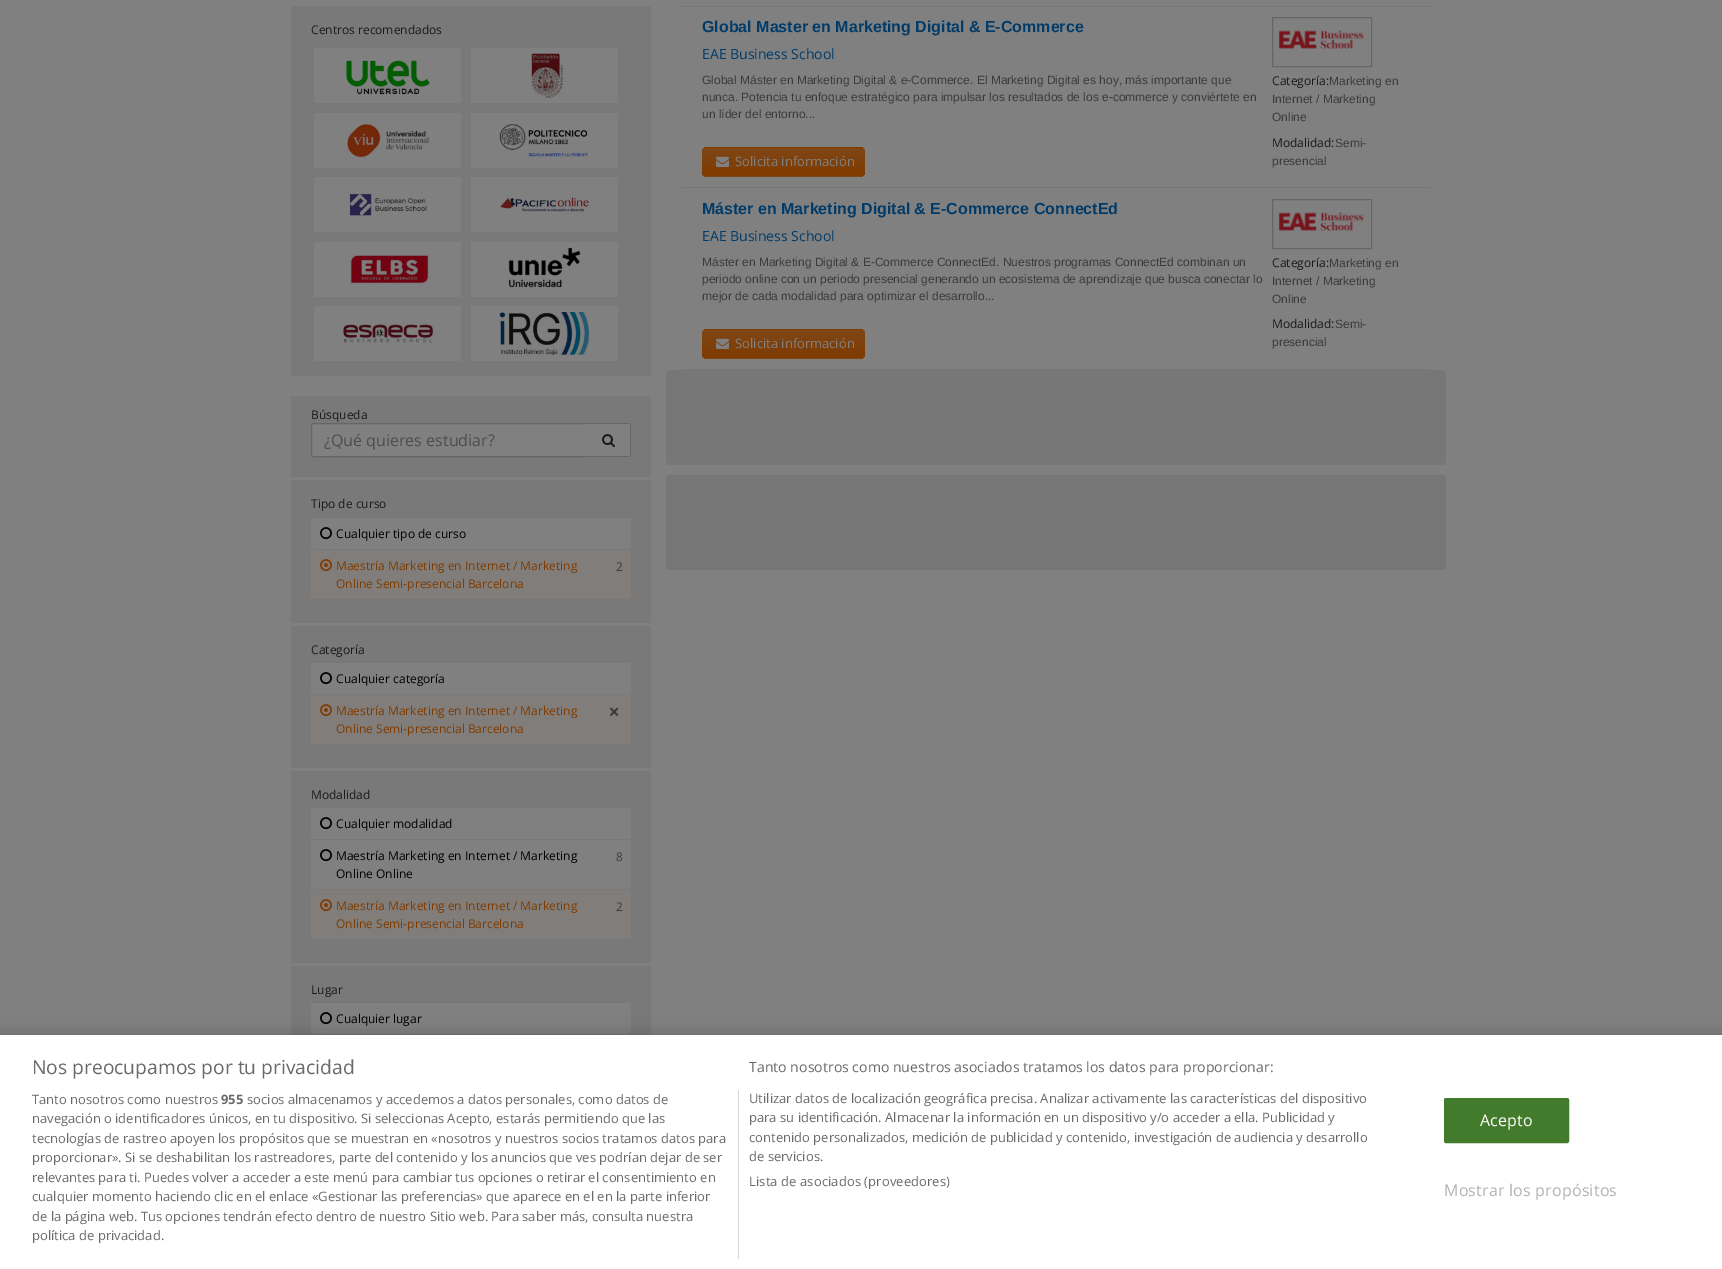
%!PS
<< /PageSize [1722 1269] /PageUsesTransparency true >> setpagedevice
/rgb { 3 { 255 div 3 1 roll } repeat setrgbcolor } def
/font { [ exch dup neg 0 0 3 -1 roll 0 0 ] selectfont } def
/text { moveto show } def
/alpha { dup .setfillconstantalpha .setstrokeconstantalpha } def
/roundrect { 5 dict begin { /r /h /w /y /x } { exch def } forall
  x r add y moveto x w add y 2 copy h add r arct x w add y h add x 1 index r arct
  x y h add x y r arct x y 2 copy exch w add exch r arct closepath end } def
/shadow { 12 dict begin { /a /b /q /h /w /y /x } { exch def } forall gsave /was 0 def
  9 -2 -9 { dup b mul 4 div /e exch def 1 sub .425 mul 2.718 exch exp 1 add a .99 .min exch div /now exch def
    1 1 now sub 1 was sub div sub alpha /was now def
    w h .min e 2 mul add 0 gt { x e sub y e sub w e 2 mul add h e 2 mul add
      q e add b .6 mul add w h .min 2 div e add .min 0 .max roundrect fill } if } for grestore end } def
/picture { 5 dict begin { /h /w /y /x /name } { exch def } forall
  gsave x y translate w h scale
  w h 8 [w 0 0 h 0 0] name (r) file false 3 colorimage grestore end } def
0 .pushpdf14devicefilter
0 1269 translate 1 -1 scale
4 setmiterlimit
128 128 128 rgb
0 0 1722 1269 rectfill
121 121 121 rgb
291 6 360 370 rectfill
128 128 128 rgb
314 48 147 55 rectfill
(img_01.rgb) 346 60 84 35 picture
471 48 147 55 rectfill
(img_02.rgb) 531 53 32 45 picture
314 113 147 55 rectfill
(img_03.rgb) 347 124 82 34 picture
471 113 147 55 rectfill
(img_04.rgb) 499 124 89 33 picture
314 177 147 55 rectfill
(img_05.rgb) 349 193 78 23 picture
471 177 147 55 rectfill
(img_06.rgb) 500 197 89 15 picture
314 242 147 55 rectfill
(img_07.rgb) 349 254 80 31 picture
471 242 147 55 rectfill
(img_08.rgb) 508 247 73 41 picture
314 306 147 55 rectfill
(img_09.rgb) 343 324 90 19 picture
471 306 147 55 rectfill
(img_10.rgb) 499 312 90 44 picture
121 121 121 rgb
291 396 360 639 rectfill
128 128 128 rgb
291 477 360 3 rectfill
313 423.5 moveto 272.5 0 rlineto 0 33 rlineto -272.5 0 rlineto -1 0 -1.5 -0.5 -1.5 -1.5 rcurveto 0 -30 rlineto 0 -1 0.5 -1.5 1.5 -1.5 rcurveto closepath gsave fill grestore
102 102 102 rgb
stroke
128 128 128 rgb
585 423 moveto 44 0 rlineto 1 0 2 1 2 2 rcurveto 0 30 rlineto 0 1 -1 2 -2 2 rcurveto -44 0 rlineto closepath fill
102 102 102 rgb
585 423 moveto 1 1 rlineto 44 0 rlineto -1 -1 rlineto closepath 631 455 moveto 0 -30 rlineto -0.5 -1.5 rlineto -0.5 0.5 rlineto 0 32 rlineto 0.5 0.5 rlineto closepath fill
629 457 moveto 1 -1 rlineto -44 0 rlineto -1 1 rlineto closepath fill
(img_11.rgb) 602 434 13 14 picture
128 128 128 rgb
291 623 360 3 rectfill
311 517 320 32 4 roundrect fill
119 119 119 rgb
313 517 316 1 rectfill
(img_12.rgb) 320 527 12 13 picture
128 125 122 rgb
311 550 320 49 rectfill
(img_13.rgb) 320 559 12 13 picture
128 128 128 rgb
291 768 360 3 rectfill
311 662 320 32 4 roundrect fill
119 119 119 rgb
313 662 316 1 rectfill
(img_12.rgb) 320 672 12 13 picture
128 125 122 rgb
311 695 320 49 rectfill
(img_13.rgb) 320 704 12 13 picture
(img_14.rgb) 610 707 9 9 picture
128 128 128 rgb
291 963 360 3 rectfill
311 807 320 32 4 roundrect fill
119 119 119 rgb
313 807 316 1 rectfill
(img_12.rgb) 320 817 12 13 picture
128 128 128 rgb
311 839 320 50 4 roundrect fill
119 119 119 rgb
313 839 316 1 rectfill
(img_12.rgb) 320 849 12 13 picture
128 125 122 rgb
311 890 320 49 rectfill
(img_13.rgb) 320 899 12 13 picture
128 128 128 rgb
311 1002 320 32 4 roundrect fill
119 119 119 rgb
313 1002 316 1 rectfill
(img_12.rgb) 320 1012 12 13 picture
681 6 moveto 750 0 rlineto -1 1 rlineto -748 0 rlineto closepath fill
1431 188 moveto -750 0 rlineto 1 -1 rlineto 748 0 rlineto closepath fill
102 102 102 rgb
1272.5 17.5 99 49 rectstroke
(img_15.rgb) 1278 30 86 19 picture
gsave
702 147 163 30 6 roundrect clip newpath
gsave 702 147 moveto 163 0 rlineto 0 1 rlineto -163 0 rlineto closepath clip newpath
<< /ShadingType 2 /ColorSpace /DeviceRGB /Coords [784 120 784 148] /Extend [true true] /Function << /FunctionType 2 /Domain [0 1] /C0 [0.498 0.275 0.086] /C1 [0.502 0.231 0] /N 1 >> >> shfill grestore
gsave 702 148 moveto 163 0 rlineto 0 28 rlineto -163 0 rlineto closepath clip newpath
<< /ShadingType 2 /ColorSpace /DeviceRGB /Coords [784 148 784 176] /Extend [true true] /Function << /FunctionType 2 /Domain [0 1] /C0 [0.498 0.275 0.086] /C1 [0.502 0.231 0] /N 1 >> >> shfill grestore
gsave 702 176 moveto 163 0 rlineto 0 1 rlineto -163 0 rlineto closepath clip newpath
<< /ShadingType 2 /ColorSpace /DeviceRGB /Coords [784 176 784 204] /Extend [true true] /Function << /FunctionType 2 /Domain [0 1] /C0 [0.498 0.275 0.086] /C1 [0.502 0.231 0] /N 1 >> >> shfill grestore
grestore
(img_16.rgb) 716 156 13 11 picture
119 119 119 rgb
1431 370 moveto -750 0 rlineto 1 -1 rlineto 748 0 rlineto closepath fill
102 102 102 rgb
1272.5 199.5 99 49 rectstroke
(img_15.rgb) 1278 212 86 19 picture
gsave
702 329 163 30 6 roundrect clip newpath
gsave 702 329 moveto 163 0 rlineto 0 1 rlineto -163 0 rlineto closepath clip newpath
<< /ShadingType 2 /ColorSpace /DeviceRGB /Coords [784 302 784 330] /Extend [true true] /Function << /FunctionType 2 /Domain [0 1] /C0 [0.498 0.275 0.086] /C1 [0.502 0.231 0] /N 1 >> >> shfill grestore
gsave 702 330 moveto 163 0 rlineto 0 28 rlineto -163 0 rlineto closepath clip newpath
<< /ShadingType 2 /ColorSpace /DeviceRGB /Coords [784 330 784 358] /Extend [true true] /Function << /FunctionType 2 /Domain [0 1] /C0 [0.498 0.275 0.086] /C1 [0.502 0.231 0] /N 1 >> >> shfill grestore
gsave 702 358 moveto 163 0 rlineto 0 1 rlineto -163 0 rlineto closepath clip newpath
<< /ShadingType 2 /ColorSpace /DeviceRGB /Coords [784 358 784 386] /Extend [true true] /Function << /FunctionType 2 /Domain [0 1] /C0 [0.498 0.275 0.086] /C1 [0.502 0.231 0] /N 1 >> >> shfill grestore
grestore
(img_16.rgb) 716 338 13 11 picture
119 119 119 rgb
666 370 780 95 3 roundrect fill
666 475 780 95 3 roundrect fill
0 0 0 rgb
0 1035 1722 234 0 9 0.2 shadow
255 255 255 rgb
0 1035 1722 234 rectfill
216 216 216 rgb
738 1090 1 169 rectfill
67 123 45 rgb
1444.5 1098.5 124 44 1.5 roundrect gsave fill grestore
stroke
/OpenSans-Regular 12 font
26 26 26 rgb
(Centros recomendados) 311 34 text
(Búsqueda) 311 419 text
/OpenSans-Regular 16 font
77 77 77 rgb
(¿Qué quieres estudiar?) 324 446 text
/OpenSans-Regular 12 font
26 26 26 rgb
(Tipo de curso) 311 508 text
0 0 0 rgb
(Cualquier tipo de curso) 336 538 text
128 59 0 rgb
(Maestría Marketing en Internet / Marketing) 336 570 text
(Online Semi-presencial Barcelona) 336 588 text
59 59 59 rgb
(2) 616 571 text
26 26 26 rgb
(Categoría) 311 654 text
0 0 0 rgb
(Cualquier categoría) 336 683 text
128 59 0 rgb
(Maestría Marketing en Internet / Marketing) 336 715 text
(Online Semi-presencial Barcelona) 336 733 text
26 26 26 rgb
(Modalidad) 311 799 text
0 0 0 rgb
(Cualquier modalidad) 336 828 text
(Maestría Marketing en Internet / Marketing) 336 860 text
(Online Online) 336 878 text
59 59 59 rgb
(8) 616 861 text
128 59 0 rgb
(Maestría Marketing en Internet / Marketing) 336 910 text
(Online Semi-presencial Barcelona) 336 928 text
59 59 59 rgb
(2) 616 911 text
26 26 26 rgb
(Lugar) 311 994 text
0 0 0 rgb
(Cualquier lugar) 336 1023 text
/LiberationSans-Bold 16 font
0 59 105 rgb
(Global Master en Marketing Digital & E-Commerce) 702 32 text
/OpenSans-Regular 14 font
(EAE Business School) 702 59 text
/LiberationSans-Regular 12 font
59 59 59 rgb
(Global Máster en Marketing Digital & e-Commerce. El Marketing Digital es hoy, más importante que) 702 84 text
(nunca. Potencia tu enfoque estratégico para impulsar los resultados de los e-commerce y conviértete en) 702 101 text
(un líder del entorno...) 702 118 text
/OpenSans-Regular 12 font
26 26 26 rgb
(Categoría:) 1272 85 text
/LiberationSans-Regular 12 font
59 59 59 rgb
(Marketing en) 1329 85 text
(Internet / Marketing) 1272 103 text
(Online) 1272 121 text
/OpenSans-Regular 12 font
26 26 26 rgb
(Modalidad:) 1272 147 text
/LiberationSans-Regular 12 font
59 59 59 rgb
(Semi-) 1335 147 text
(presencial) 1272 165 text
/OpenSans-Regular 13 font
128 128 128 rgb
(Solicita información) 735 166 text
/LiberationSans-Bold 16 font
0 59 105 rgb
(Máster en Marketing Digital & E-Commerce ConnectEd) 702 214 text
/OpenSans-Regular 14 font
(EAE Business School) 702 241 text
/LiberationSans-Regular 12 font
59 59 59 rgb
(Máster en Marketing Digital & E-Commerce ConnectEd. Nuestros programas ConnectEd combinan un) 702 266 text
(periodo online con un periodo presencial generando un ecosistema de aprendizaje que busca conectar lo) 702 283 text
(mejor de cada modalidad para optimizar el desarrollo...) 702 300 text
/OpenSans-Regular 12 font
26 26 26 rgb
(Categoría:) 1272 267 text
/LiberationSans-Regular 12 font
59 59 59 rgb
(Marketing en) 1329 267 text
(Internet / Marketing) 1272 285 text
(Online) 1272 303 text
/OpenSans-Regular 12 font
26 26 26 rgb
(Modalidad:) 1272 328 text
/LiberationSans-Regular 12 font
59 59 59 rgb
(Semi-) 1335 328 text
(presencial) 1272 346 text
/OpenSans-Regular 13 font
128 128 128 rgb
(Solicita información) 735 348 text
/OpenSans-Regular 19.25 font
105 105 105 rgb
(Nos preocupamos por tu privacidad) 32 1074 text
/OpenSans-Regular 14.1 font
(Tanto nosotros como nuestros asociados tratamos los datos para proporcionar:) 749 1072 text
/OpenSans-Regular 13 font
(Utilizar datos de localización geográfica precisa. Analizar activamente las características del dispositivo) 749 1103 text
(para su identificación. Almacenar la información en un dispositivo y/o acceder a ella. Publicidad y) 749 1122 text
(contenido personalizados, medición de publicidad y contenido, investigación de audiencia y desarrollo) 749 1142 text
(de servicios.) 749 1161 text
749 1186 moveto 0.1 0 (Lista de asociados \(proveedores\)) ashow
(Tanto nosotros como nuestros) 32 1104 text
/OpenSans-Bold 13 font
(955) 221 1104 text
/OpenSans-Regular 13 font
(socios almacenamos y accedemos a datos personales, como datos de) 247 1104 text
(navegación o identificadores únicos, en tu dispositivo. Si seleccionas Acepto, estarás permitiendo que las) 32 1123 text
(tecnologías de rastreo apoyen los propósitos que se muestran en «nosotros y nuestros socios tratamos datos para) 32 1143 text
(proporcionar». Si se deshabilitan los rastreadores, parte del contenido y los anuncios que ves podrían dejar de ser) 32 1162 text
(relevantes para ti. Puedes volver a acceder a este menú para cambiar tus opciones o retirar el consentimiento en) 32 1182 text
(cualquier momento haciendo clic en el enlace «Gestionar las preferencias» que aparece en el en la parte inferior) 32 1201 text
(de la página web. Tus opciones tendrán efecto dentro de nuestro Sitio web. Para saber más, consulta nuestra) 32 1221 text
(política de privacidad.) 32 1240 text
/OpenSans-Regular 16 font
255 255 255 rgb
1480 1126 moveto 0.2 0 (Acepto) ashow
179 177 177 rgb
1444 1196 moveto 0.2 0 (Mostrar los propósitos) ashow
.poppdf14devicefilter showpage
